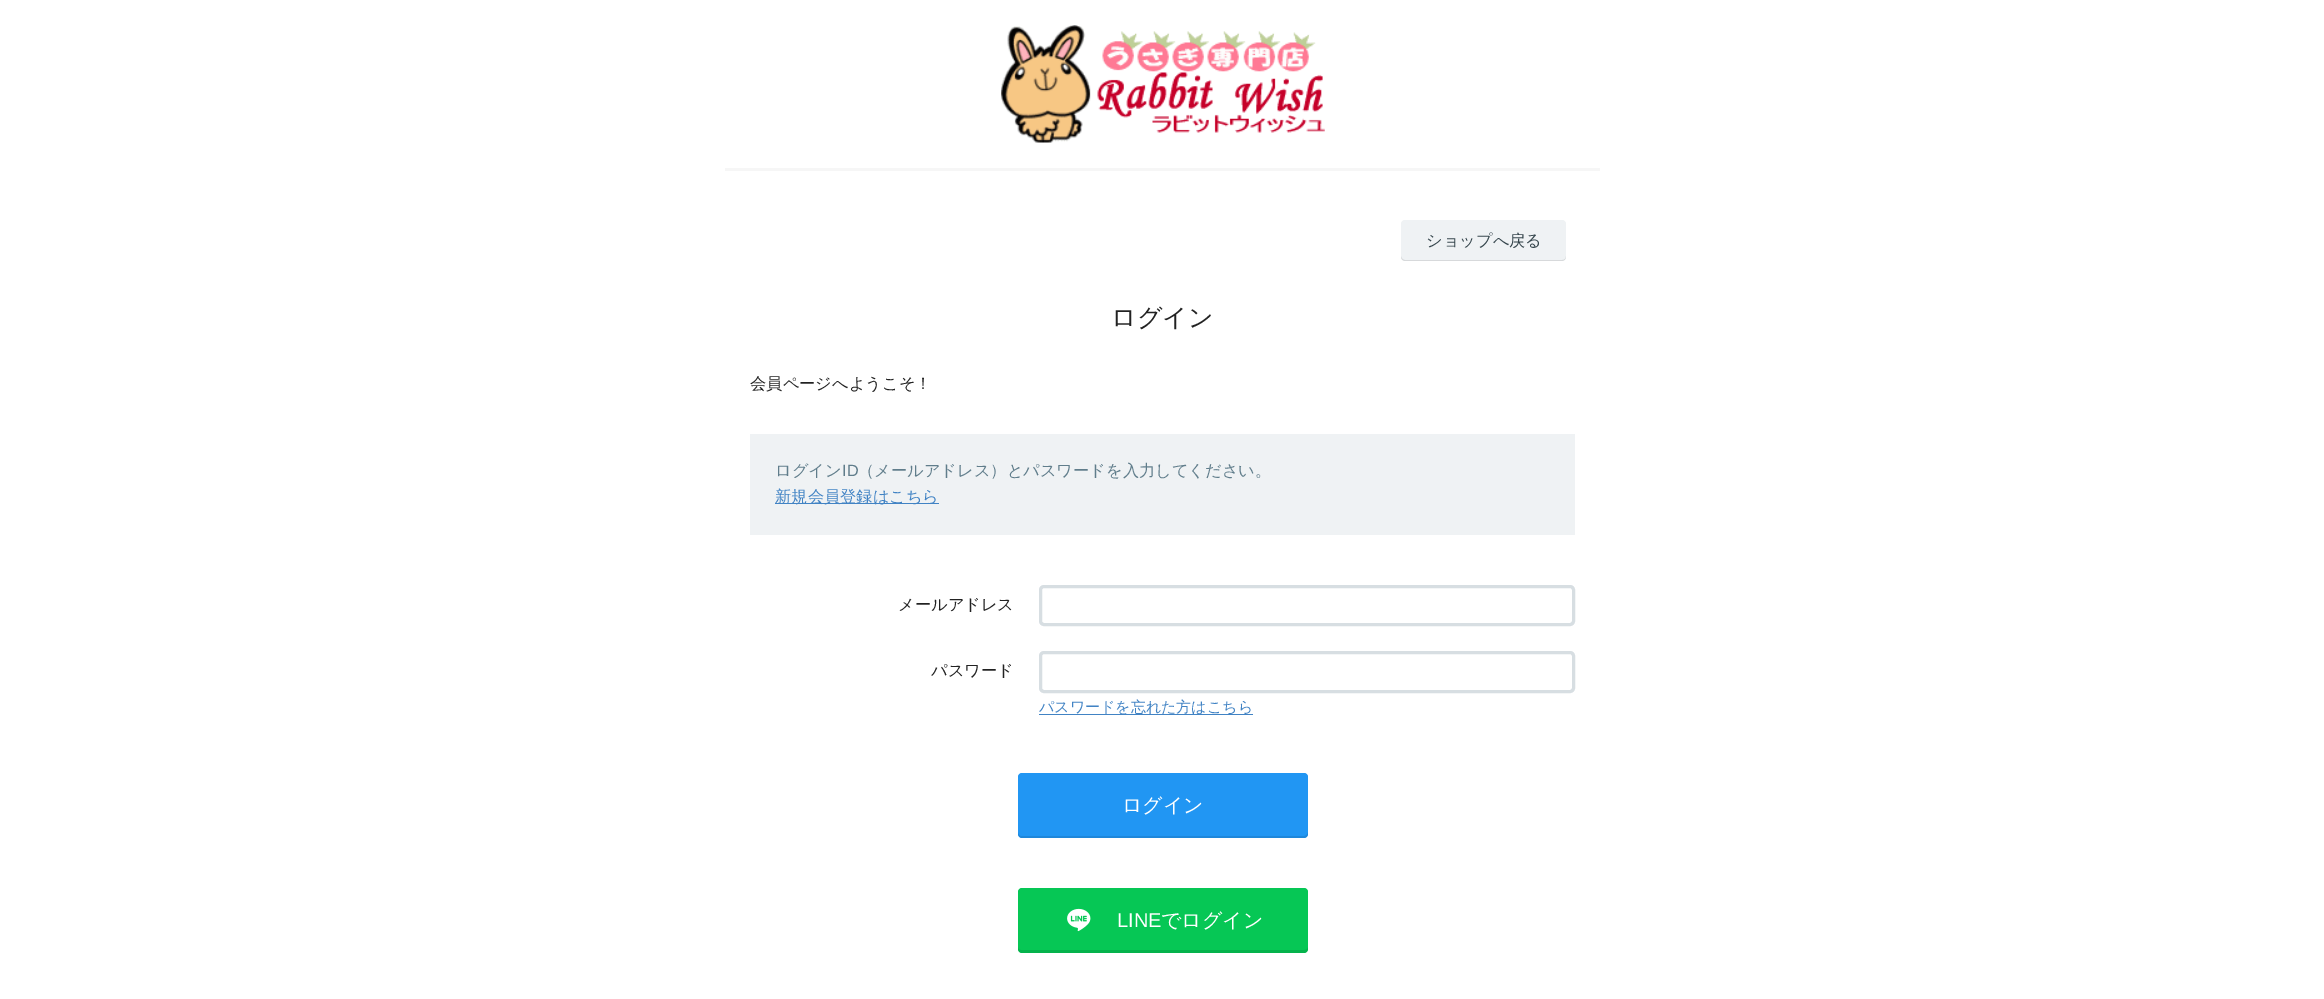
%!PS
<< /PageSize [2324 999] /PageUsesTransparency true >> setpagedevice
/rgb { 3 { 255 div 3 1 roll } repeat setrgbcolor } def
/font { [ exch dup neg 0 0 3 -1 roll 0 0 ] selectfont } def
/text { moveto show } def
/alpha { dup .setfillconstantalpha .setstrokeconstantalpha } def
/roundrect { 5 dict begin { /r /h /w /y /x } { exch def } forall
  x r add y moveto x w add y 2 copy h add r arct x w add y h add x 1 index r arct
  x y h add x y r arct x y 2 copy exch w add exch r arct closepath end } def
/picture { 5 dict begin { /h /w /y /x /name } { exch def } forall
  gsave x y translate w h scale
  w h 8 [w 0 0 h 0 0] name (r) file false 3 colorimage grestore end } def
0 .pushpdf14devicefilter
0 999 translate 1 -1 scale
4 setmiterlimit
255 255 255 rgb
0 0 2324 999 rectfill
(img_01.rgb) 1001 25 324 118 picture
246 246 246 rgb
725 168 875 3 rectfill
239 242 244 rgb
1401 220 165 41 4 roundrect fill
0.1 alpha
0 0 0 rgb
1401 256 moveto 0 1 rlineto 0 2 2 4 4 4 rcurveto 157 0 rlineto 2 0 4 -2 4 -4 rcurveto 0 -1 rlineto 0 2 -1 4 -4 4 rcurveto -157 0 rlineto -2 0 -4 -2 -4 -4 rcurveto closepath fill
1 alpha
239 242 244 rgb
750 434 825 101 rectfill
65 131 196 rgb
775 503 164 1 rectfill
215 222 226 rgb
3 setlinewidth
1040.5 586.5 533 38 3.5 roundrect stroke
1040.5 652.5 533 39 3.5 roundrect stroke
65 131 196 rgb
1039 714 214 1 rectfill
33 150 243 rgb
1018 773 290 65 4 roundrect fill
0.1 alpha
0 0 0 rgb
1018 832 moveto 0 2 rlineto 0 2 2 4 4 4 rcurveto 282 0 rlineto 2 0 4 -2 4 -4 rcurveto 0 -2 rlineto 0 2 -2 4 -4 4 rcurveto -283 0 rlineto -2 0 -3 -2 -3 -4 rcurveto closepath fill
1 alpha
6 199 85 rgb
1018 888 290 65 4 roundrect fill
0.1 alpha
0 0 0 rgb
1018 947 moveto 0 2 rlineto 0 2 2 4 4 4 rcurveto 282 0 rlineto 2 0 4 -2 4 -4 rcurveto 0 -2 rlineto 0 2 -2 3 -4 3 rcurveto -283 0 rlineto -2 0 -3 -1 -3 -3 rcurveto closepath fill
1 alpha
(img_02.rgb) 1067 908 24 24 picture
/WenQuanYiZenHei-Medium 16.25 font
53 69 76 rgb
(ショップへ戻る) 1426 246 text
/WenQuanYiZenHei-Medium 25 font
34 34 34 rgb
(ログイン) 1111 326 text
/WenQuanYiZenHei-Medium 16.25 font
(会員ページへようこそ！) 750 389 text
96 125 139 rgb
(ログイン) 775 476 text
/LiberationSans-Regular 16.25 font
(ID) 842 476 text
/WenQuanYiZenHei-Medium 16.25 font
(（メールアドレス）とパスワードを入力してください。) 858 476 text
65 131 196 rgb
(新規会員登録はこちら) 775 502 text
34 34 34 rgb
(メールアドレス) 898 610 text
(パスワード) 931 676 text
/WenQuanYiZenHei-Medium 15 font
65 131 196 rgb
(パスワードを忘れた方はこちら) 1039 712 text
/WenQuanYiZenHei-Medium 20 font
255 255 255 rgb
(ログイン) 1122 812 text
/LiberationSans-Regular 20 font
(LINE) 1117 927 text
/WenQuanYiZenHei-Medium 20 font
(でログイン) 1161 927 text
.poppdf14devicefilter showpage
